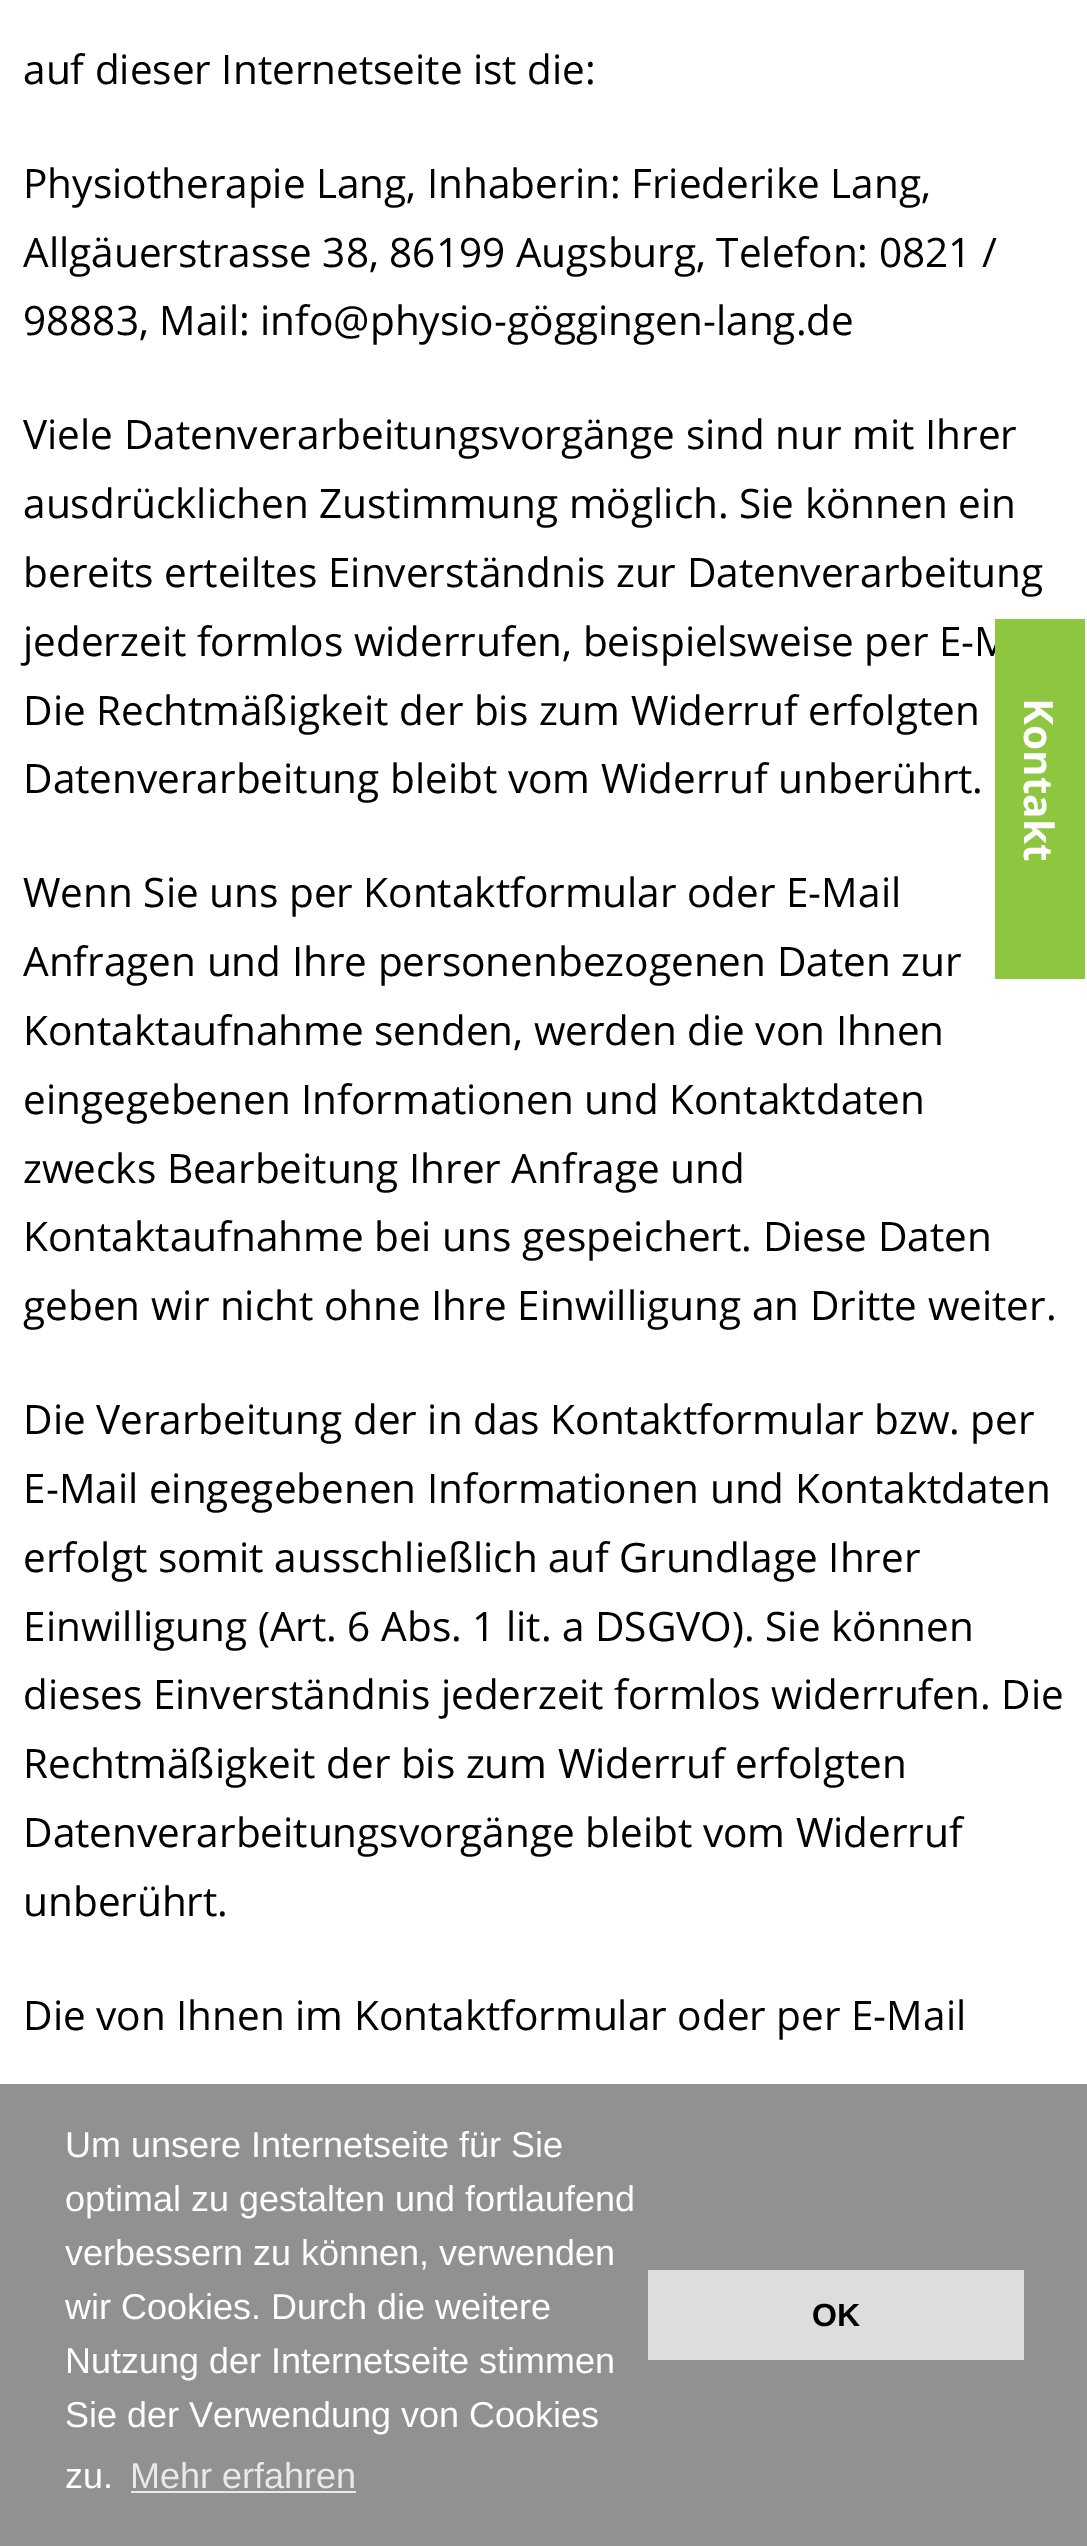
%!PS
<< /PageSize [1087 2546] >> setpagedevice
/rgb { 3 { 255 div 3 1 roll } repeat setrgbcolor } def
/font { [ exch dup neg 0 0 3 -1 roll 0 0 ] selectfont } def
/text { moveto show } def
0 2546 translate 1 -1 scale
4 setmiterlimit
255 255 255 rgb
0 0 1087 2546 rectfill
145 145 145 rgb
0 2084 1087 462 rectfill
233 233 233 rgb
131 2491 225 2 rectfill
221 221 221 rgb
648 2270 376 90 rectfill
/OpenSans-Regular 40.5 font
0 0 0 rgb
(auf dieser Internetseite ist die:) 23 84 text
(Physiotherapie Lang, Inhaberin: Friederike Lang,) 23 198 text
(Allgäuerstrasse 38, 86199 Augsburg, Telefon: 0821 /) 23 267 text
(98883, Mail: info@physio-göggingen-lang.de) 23 335 text
(Viele Datenverarbeitungsvorgänge sind nur mit Ihrer) 23 449 text
(ausdrücklichen Zustimmung möglich. Sie können ein) 23 518 text
(bereits erteiltes Einverständnis zur Datenverarbeitung) 23 587 text
(jederzeit formlos widerrufen, beispielsweise per E-M) 23 656 text
(Die Rechtmäßigkeit der bis zum Widerruf erfolgten) 23 725 text
(Datenverarbeitung bleibt vom Widerruf unberührt.) 23 793 text
(Wenn Sie uns per Kontaktformular oder E-Mail) 23 907 text
(Anfragen und Ihre personenbezogenen Daten zur) 23 976 text
(Kontaktaufnahme senden, werden die von Ihnen) 23 1045 text
(eingegebenen Informationen und Kontaktdaten) 23 1114 text
(zwecks Bearbeitung Ihrer Anfrage und) 23 1183 text
(Kontaktaufnahme bei uns gespeichert. Diese Daten) 23 1251 text
(geben wir nicht ohne Ihre Einwilligung an Dritte weiter.) 23 1320 text
(Die Verarbeitung der in das Kontaktformular bzw. per) 23 1434 text
(E-Mail eingegebenen Informationen und Kontaktdaten) 23 1503 text
(erfolgt somit ausschließlich auf Grundlage Ihrer) 23 1572 text
(Einwilligung \(Art. 6 Abs. 1 lit. a DSGVO\). Sie können) 23 1641 text
(dieses Einverständnis jederzeit formlos widerrufen. Die) 23 1709 text
(Rechtmäßigkeit der bis zum Widerruf erfolgten) 23 1778 text
(Datenverarbeitungsvorgänge bleibt vom Widerruf) 23 1847 text
(unberührt.) 23 1916 text
(Die von Ihnen im Kontaktformular oder per E-Mail) 23 2030 text
141 199 63 rgb
995 619 90 360 rectfill
/OpenSans-Bold 40.5 font
255 255 255 rgb
gsave 1024 698 translate 90 rotate 0 0 moveto (Kontakt) show grestore
/LiberationSans-Regular 36 font
(Um unsere Internetseite für Sie) 65 2157 text
(optimal zu gestalten und fortlaufend) 65 2211 text
(verbessern zu können, verwenden) 65 2265 text
(wir Cookies. Durch die weitere) 65 2319 text
(Nutzung der Internetseite stimmen) 65 2373 text
(Sie der Verwendung von Cookies) 65 2427 text
(zu.) 65 2488 text
233 233 233 rgb
(Mehr erfahren) 130 2488 text
/LiberationSans-Bold 32 font
0 0 0 rgb
(OK) 812 2326 text
showpage
